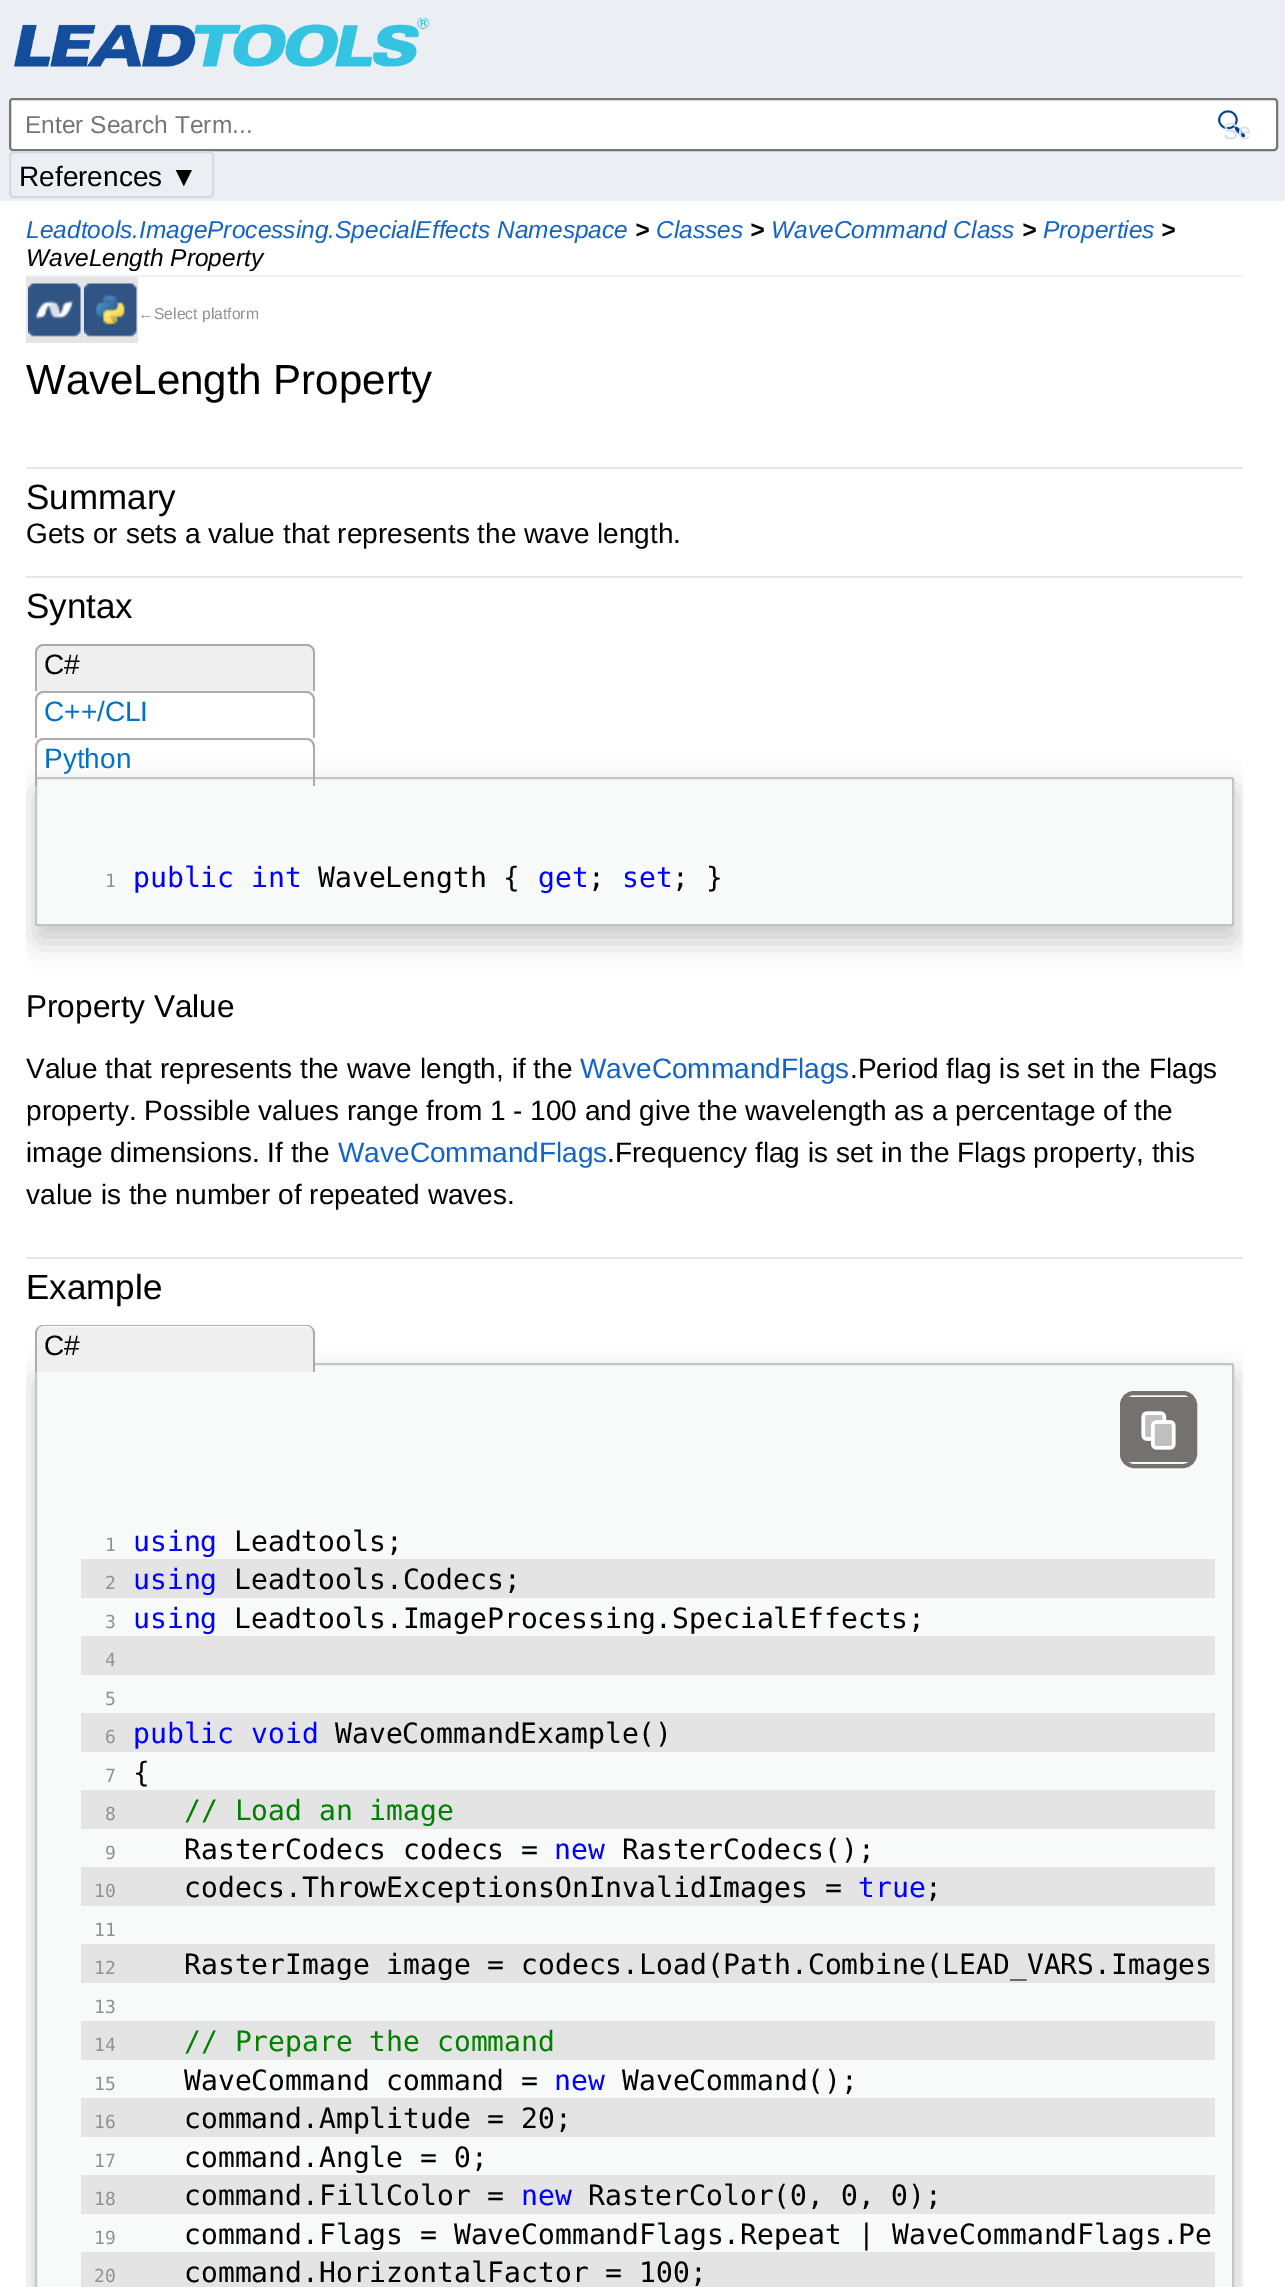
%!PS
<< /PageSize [1285 2287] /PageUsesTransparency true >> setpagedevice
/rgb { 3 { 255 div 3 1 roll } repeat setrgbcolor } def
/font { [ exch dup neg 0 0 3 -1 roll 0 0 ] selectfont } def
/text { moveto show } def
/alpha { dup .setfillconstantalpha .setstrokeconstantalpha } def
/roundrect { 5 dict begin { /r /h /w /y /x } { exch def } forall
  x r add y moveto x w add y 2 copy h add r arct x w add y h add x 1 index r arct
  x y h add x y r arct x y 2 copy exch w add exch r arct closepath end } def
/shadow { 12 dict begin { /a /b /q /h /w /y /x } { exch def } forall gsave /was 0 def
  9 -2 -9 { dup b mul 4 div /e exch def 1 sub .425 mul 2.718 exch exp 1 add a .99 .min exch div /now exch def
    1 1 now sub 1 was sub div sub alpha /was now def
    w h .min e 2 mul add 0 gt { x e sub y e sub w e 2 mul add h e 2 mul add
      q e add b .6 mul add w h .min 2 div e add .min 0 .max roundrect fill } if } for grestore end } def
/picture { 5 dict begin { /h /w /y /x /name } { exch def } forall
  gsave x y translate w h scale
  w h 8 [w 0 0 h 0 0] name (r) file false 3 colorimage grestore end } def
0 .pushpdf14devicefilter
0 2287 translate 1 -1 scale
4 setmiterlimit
255 255 255 rgb
0 0 1285 2287 rectfill
235 238 243 rgb
0 0 1285 201 rectfill
(img_01.rgb) 14 18 415 49 picture
255 255 255 rgb
10 99 1267 51 3 roundrect gsave fill grestore
118 118 118 rgb
2 setlinewidth
stroke
(img_02.rgb) 1218 110 27 28 picture
214 216 220 rgb
10 152 203 45 4 roundrect stroke
241 241 241 rgb
26 275 1217 2 rectfill
228 228 228 rgb
26 277 112 66 rectfill
(img_03.rgb) 28 283 53 54 picture
(img_04.rgb) 84 283 53 54 picture
230 230 230 rgb
26 467 1217 2 rectfill
26 576 1217 2 rectfill
239 239 239 rgb
44 646 moveto 262 0 rlineto 4 0 7 3 7 7 rcurveto 0 38 rlineto -276 0 rlineto 0 -38 rlineto 0 -4 3 -7 7 -7 rcurveto closepath fill
176 170 170 rgb
43 644 moveto 264 0 rlineto 4 0 8 4 8 8 rcurveto 0 39 rlineto -280 0 rlineto 0 -39 rlineto 0 -4 4 -8 8 -8 rcurveto closepath 43 646 moveto 264 0 rlineto 3 0 6 3 6 6 rcurveto 0 39 rlineto -276 0 rlineto 0 -39 rlineto 0 -3 3 -6 6 -6 rcurveto closepath eofill
43 691 moveto 264 0 rlineto 4 0 8 4 8 9 rcurveto 0 38 rlineto -280 0 rlineto 0 -38 rlineto 0 -5 4 -9 8 -9 rcurveto closepath 43 693 moveto 264 0 rlineto 3 0 6 3 6 7 rcurveto 0 38 rlineto -276 0 rlineto 0 -38 rlineto 0 -4 3 -7 6 -7 rcurveto closepath eofill
gsave
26 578 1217 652 rectclip
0 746 moveto 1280 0 rlineto 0 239 rlineto -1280 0 rlineto closepath 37.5 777 moveto 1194 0 rlineto 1.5 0 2.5 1 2.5 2.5 rcurveto 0 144 rlineto 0 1.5 -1 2.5 -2.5 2.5 rcurveto -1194 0 rlineto -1.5 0 -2.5 -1 -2.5 -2.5 rcurveto 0 -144 rlineto 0 -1.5 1 -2.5 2.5 -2.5 rcurveto closepath eoclip newpath
0 0 0 rgb
35 789 1202 153 4 14 0.2 shadow
grestore
0.4 alpha
238 239 240 rgb
35 777 1199 149 2.5 roundrect fill
118 118 118 rgb
36 778 1197 147 1.5 roundrect stroke
1 alpha
176 170 170 rgb
43 738 moveto 264 0 rlineto 4 0 8 4 8 9 rcurveto 0 39 rlineto -280 0 rlineto 0 -39 rlineto 0 -5 4 -9 8 -9 rcurveto closepath 43 740 moveto 264 0 rlineto 3 0 6 3 6 7 rcurveto 0 39 rlineto -276 0 rlineto 0 -39 rlineto 0 -4 3 -7 6 -7 rcurveto closepath eofill
230 230 230 rgb
26 1257 1217 2 rectfill
gsave
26 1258 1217 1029 rectclip
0 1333 moveto 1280 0 rlineto 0 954 rlineto -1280 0 rlineto closepath 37.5 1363 moveto 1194 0 rlineto 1.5 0 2.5 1 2.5 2.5 rcurveto 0 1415 rlineto 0 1.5 -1 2.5 -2.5 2.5 rcurveto -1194 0 rlineto -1.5 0 -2.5 -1 -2.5 -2.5 rcurveto 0 -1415 rlineto 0 -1.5 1 -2.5 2.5 -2.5 rcurveto closepath eoclip newpath
0 0 0 rgb
35 1376 1202 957 4 14 0.2 shadow
grestore
0.4 alpha
238 239 240 rgb
37.5 1363 moveto 1194 0 rlineto 1.5 0 2.5 1 2.5 2.5 rcurveto 0 921.5 rlineto -1199 0 rlineto 0 -921.5 rlineto 0 -1.5 1 -2.5 2.5 -2.5 rcurveto closepath fill
118 118 118 rgb
36 1364 1197 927 1.5 roundrect stroke
1 alpha
239 239 239 rgb
44 1327 moveto 262 0 rlineto 4 0 7 3 7 7 rcurveto 0 38 rlineto -276 0 rlineto 0 -38 rlineto 0 -4 3 -7 7 -7 rcurveto closepath fill
176 170 170 rgb
43 1325 moveto 264 0 rlineto 4 0 8 4 8 8 rcurveto 0 39 rlineto -280 0 rlineto 0 -39 rlineto 0 -4 4 -8 8 -8 rcurveto closepath 43 1326 moveto 264 0 rlineto 3 0 6 3 6 7 rcurveto 0 39 rlineto -276 0 rlineto 0 -39 rlineto 0 -4 3 -7 6 -7 rcurveto closepath eofill
(img_05.rgb) 1124 1397 69 65 picture
118 113 113 rgb
4 setlinewidth
1122 1393 73 73 12 roundrect stroke
228 228 228 rgb
81 1559 1134 39 rectfill
81 1636 1134 39 rectfill
81 1713 1134 39 rectfill
81 1790 1134 39 rectfill
81 1867 1134 39 rectfill
81 1944 1134 39 rectfill
81 2021 1134 39 rectfill
81 2098 1134 39 rectfill
81 2175 1134 39 rectfill
81 2252 1134 35 rectfill
/LiberationSans-Regular 24.5 font
117 117 117 rgb
(Enter Search Term...) 25 133 text
/LiberationSans-Regular 23 font
213 223 235 rgb
(Se) 1223 139 text
/LiberationSans-Regular 28 font
0 0 0 rgb
(References ▼) 19 186 text
/LiberationSans-Italic 24.5 font
19 100 196 rgb
(Leadtools.ImageProcessing.SpecialEffects Namespace) 26 238 text
/LiberationSans-BoldItalic 24.5 font
0 0 0 rgb
(>) 635 238 text
/LiberationSans-Italic 24.5 font
19 100 196 rgb
(Classes) 656 238 text
/LiberationSans-BoldItalic 24.5 font
0 0 0 rgb
(>) 750 238 text
/LiberationSans-Italic 24.5 font
19 100 196 rgb
(WaveCommand Class) 771 238 text
/LiberationSans-BoldItalic 24.5 font
0 0 0 rgb
(>) 1022 238 text
/LiberationSans-Italic 24.5 font
19 100 196 rgb
(Properties) 1043 238 text
/LiberationSans-BoldItalic 24.5 font
0 0 0 rgb
(>) 1161 238 text
/LiberationSans-Italic 24.5 font
(WaveLength Property) 26 266 text
/LiberationSans-Regular 15.75 font
144 144 144 rgb
(←Select platform) 138 319 text
/LiberationSans-Regular 42 font
0 0 0 rgb
(WaveLength Property) 26 394 text
/LiberationSans-Regular 35 font
(Summary) 26 509 text
/LiberationSans-Regular 28 font
(Gets or sets a value that represents the wave length.) 26 543 text
/LiberationSans-Regular 35 font
(Syntax) 26 618 text
/LiberationSans-Regular 28 font
(C#) 44 674 text
0 114 198 rgb
(C++/CLI) 44 721 text
(Python) 44 768 text
/DejaVuSansMono-Regular 18 font
144 144 144 rgb
(1) 105 887 text
/DejaVuSansMono-Regular 28 font
0 0 255 rgb
(public int) 133 887 text
0 0 0 rgb
(WaveLength {) 318 887 text
0 0 255 rgb
(get) 538 887 text
0 0 0 rgb
(;) 588 887 text
0 0 255 rgb
(set) 622 887 text
0 0 0 rgb
(; }) 672 887 text
/LiberationSans-Regular 31.5 font
(Property Value) 26 1017 text
/LiberationSans-Regular 28 font
(Value that represents the wave length, if the) 26 1078 text
19 100 196 rgb
(WaveCommandFlags) 580 1078 text
0 0 0 rgb
(.Period flag is set in the Flags) 850 1078 text
(property. Possible values range from 1 - 100 and give the wavelength as a percentage of the) 26 1120 text
(image dimensions. If the) 26 1162 text
19 100 196 rgb
(WaveCommandFlags) 338 1162 text
0 0 0 rgb
(.Frequency flag is set in the Flags property, this) 607 1162 text
(value is the number of repeated waves.) 26 1204 text
/LiberationSans-Regular 35 font
(Example) 26 1299 text
/LiberationSans-Regular 28 font
(C#) 44 1355 text
/DejaVuSansMono-Regular 18 font
144 144 144 rgb
(1) 105 1551 text
/DejaVuSansMono-Regular 28 font
0 0 255 rgb
(using) 133 1551 text
0 0 0 rgb
(Leadtools;) 234 1551 text
/DejaVuSansMono-Regular 18 font
144 144 144 rgb
(2) 105 1589 text
/DejaVuSansMono-Regular 28 font
0 0 255 rgb
(using) 133 1589 text
0 0 0 rgb
(Leadtools.Codecs;) 234 1589 text
/DejaVuSansMono-Regular 18 font
144 144 144 rgb
(3) 105 1628 text
/DejaVuSansMono-Regular 28 font
0 0 255 rgb
(using) 133 1628 text
0 0 0 rgb
(Leadtools.ImageProcessing.SpecialEffects;) 234 1628 text
/DejaVuSansMono-Regular 18 font
144 144 144 rgb
(4) 105 1666 text
(5) 105 1705 text
(6) 105 1743 text
/DejaVuSansMono-Regular 28 font
0 0 255 rgb
(public void) 133 1743 text
0 0 0 rgb
(WaveCommandExample\(\)) 335 1743 text
/DejaVuSansMono-Regular 18 font
144 144 144 rgb
(7) 105 1782 text
/DejaVuSansMono-Regular 28 font
0 0 0 rgb
({) 133 1782 text
/DejaVuSansMono-Regular 18 font
144 144 144 rgb
(8) 105 1820 text
/DejaVuSansMono-Regular 28 font
0 128 0 rgb
(// Load an image) 184 1820 text
/DejaVuSansMono-Regular 18 font
144 144 144 rgb
(9) 105 1859 text
/DejaVuSansMono-Regular 28 font
0 0 0 rgb
(RasterCodecs codecs =) 184 1859 text
0 0 255 rgb
(new) 554 1859 text
0 0 0 rgb
(RasterCodecs\(\);) 622 1859 text
/DejaVuSansMono-Regular 18 font
144 144 144 rgb
(10) 94 1897 text
/DejaVuSansMono-Regular 28 font
0 0 0 rgb
(codecs.ThrowExceptionsOnInvalidImages =) 184 1897 text
0 0 255 rgb
(true) 858 1897 text
0 0 0 rgb
(;) 925 1897 text
/DejaVuSansMono-Regular 18 font
144 144 144 rgb
(11) 94 1936 text
(12) 94 1974 text
/DejaVuSansMono-Regular 28 font
0 0 0 rgb
(RasterImage image = codecs.Load\(Path.Combine\(LEAD_VARS.Images) 184 1974 text
/DejaVuSansMono-Regular 18 font
144 144 144 rgb
(13) 94 2013 text
(14) 94 2051 text
/DejaVuSansMono-Regular 28 font
0 128 0 rgb
(// Prepare the command) 184 2051 text
/DejaVuSansMono-Regular 18 font
144 144 144 rgb
(15) 94 2090 text
/DejaVuSansMono-Regular 28 font
0 0 0 rgb
(WaveCommand command =) 184 2090 text
0 0 255 rgb
(new) 554 2090 text
0 0 0 rgb
(WaveCommand\(\);) 622 2090 text
/DejaVuSansMono-Regular 18 font
144 144 144 rgb
(16) 94 2128 text
/DejaVuSansMono-Regular 28 font
0 0 0 rgb
(command.Amplitude = 20;) 184 2128 text
/DejaVuSansMono-Regular 18 font
144 144 144 rgb
(17) 94 2167 text
/DejaVuSansMono-Regular 28 font
0 0 0 rgb
(command.Angle = 0;) 184 2167 text
/DejaVuSansMono-Regular 18 font
144 144 144 rgb
(18) 94 2205 text
/DejaVuSansMono-Regular 28 font
0 0 0 rgb
(command.FillColor =) 184 2205 text
0 0 255 rgb
(new) 521 2205 text
0 0 0 rgb
(RasterColor\(0, 0, 0\);) 588 2205 text
/DejaVuSansMono-Regular 18 font
144 144 144 rgb
(19) 94 2244 text
/DejaVuSansMono-Regular 28 font
0 0 0 rgb
(command.Flags = WaveCommandFlags.Repeat | WaveCommandFlags.Pe) 184 2244 text
/DejaVuSansMono-Regular 18 font
144 144 144 rgb
(20) 94 2282 text
/DejaVuSansMono-Regular 28 font
0 0 0 rgb
(command.HorizontalFactor = 100;) 184 2282 text
.poppdf14devicefilter showpage
